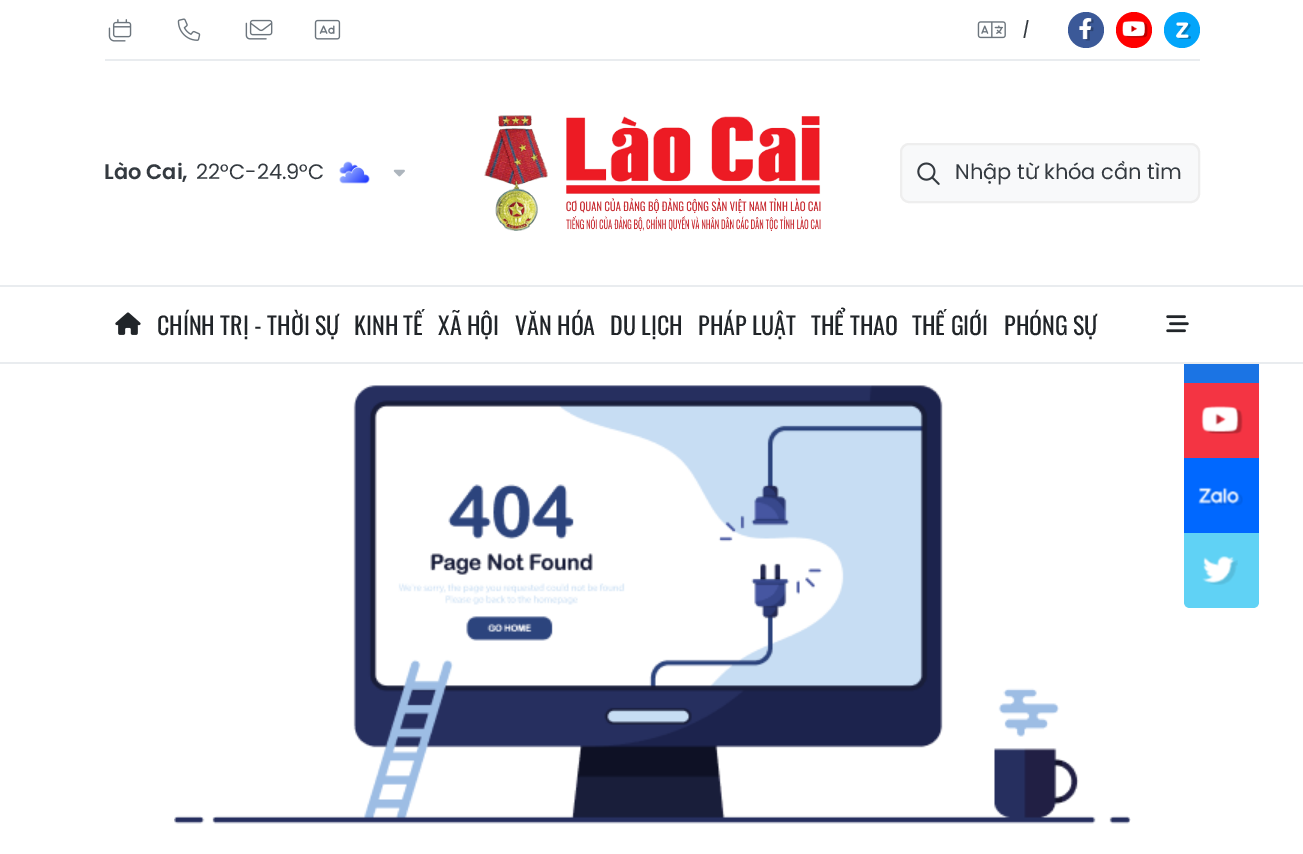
%!PS
<< /PageSize [1303 854] >> setpagedevice
/rgb { 3 { 255 div 3 1 roll } repeat setrgbcolor } def
/font { [ exch dup neg 0 0 3 -1 roll 0 0 ] selectfont } def
/text { moveto show } def
/circle { newpath 0 360 arc closepath } def
/roundrect { 5 dict begin { /r /h /w /y /x } { exch def } forall
  x r add y moveto x w add y 2 copy h add r arct x w add y h add x 1 index r arct
  x y h add x y r arct x y 2 copy exch w add exch r arct closepath end } def
/picture { 5 dict begin { /h /w /y /x /name } { exch def } forall
  gsave x y translate w h scale
  w h 8 [w 0 0 h 0 0] name (r) file false 3 colorimage grestore end } def
0 854 translate 1 -1 scale
4 setmiterlimit
255 255 255 rgb
0 0 1303 854 rectfill
(img_01.rgb) 108 19 24 23 picture
(img_02.rgb) 177 18 24 23 picture
(img_03.rgb) 245 19 28 21 picture
(img_04.rgb) 314 19 27 21 picture
(img_05.rgb) 977 21 29 18 picture
52 58 64 rgb
1027 20 moveto 1.5 0 rlineto -3.5 18 rlineto -1.5 0 rlineto closepath fill
59 89 152 rgb
1086 30 18 circle fill
(img_06.rgb) 1079 18 15 23 picture
255 0 0 rgb
1134 30 18 circle fill
(img_07.rgb) 1122 21 26 17 picture
3 165 250 rgb
1182 30 18 circle fill
(img_08.rgb) 1176 22 15 17 picture
233 236 239 rgb
105 59 1095 2 rectfill
(img_09.rgb) 339 161 31 23 picture
(img_10.rgb) 393 169 12 8 picture
(img_11.rgb) 484 115 337 116 picture
248 249 250 rgb
901 144 298 58 8 roundrect gsave fill grestore
238 238 238 rgb
2 setlinewidth
stroke
(img_12.rgb) 917 162 23 23 picture
233 236 239 rgb
0 285 1303 2 rectfill
0 362 1303 2 rectfill
(img_13.rgb) 115 312 26 23 picture
(img_14.rgb) 1166 315 23 18 picture
(img_15.rgb) 174 385 957 439 picture
27 116 228 rgb
1184 364 75 19 rectfill
244 52 67 rgb
1184 383 75 75 rectfill
(img_16.rgb) 1201 406 42 28 picture
0 104 255 rgb
1184 458 75 75 rectfill
(img_17.rgb) 1198 487 45 19 picture
96 210 245 rgb
1184 533 moveto 75 0 rlineto 0 69 rlineto 0 3.5 -2.5 6 -6 6 rcurveto -63 0 rlineto -3.5 0 -6 -2.5 -6 -6 rcurveto closepath fill
(img_18.rgb) 1202 556 36 29 picture
/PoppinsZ-SemiBold 21 font
52 58 64 rgb
(Lào Cai,) 104 179 text
/PoppinsZ-Regular 21 font
(22°C-24.9°C) 196 179 text
(Nhập từ khóa cần tìm) 955 179 text
/Oswald-Regular 24 font
33 37 41 rgb
(CHÍNH TRỊ - THỜI SỰ) 157 335 text
(KINH TẾ) 354 335 text
(XÃ HỘI) 438 335 text
(VĂN HÓA) 515 335 text
(DU LỊCH) 610 335 text
(PHÁP LUẬT) 698 335 text
(THỂ THAO) 811 335 text
(THẾ GIỚI) 912 335 text
(PHÓNG SỰ) 1004 335 text
showpage
